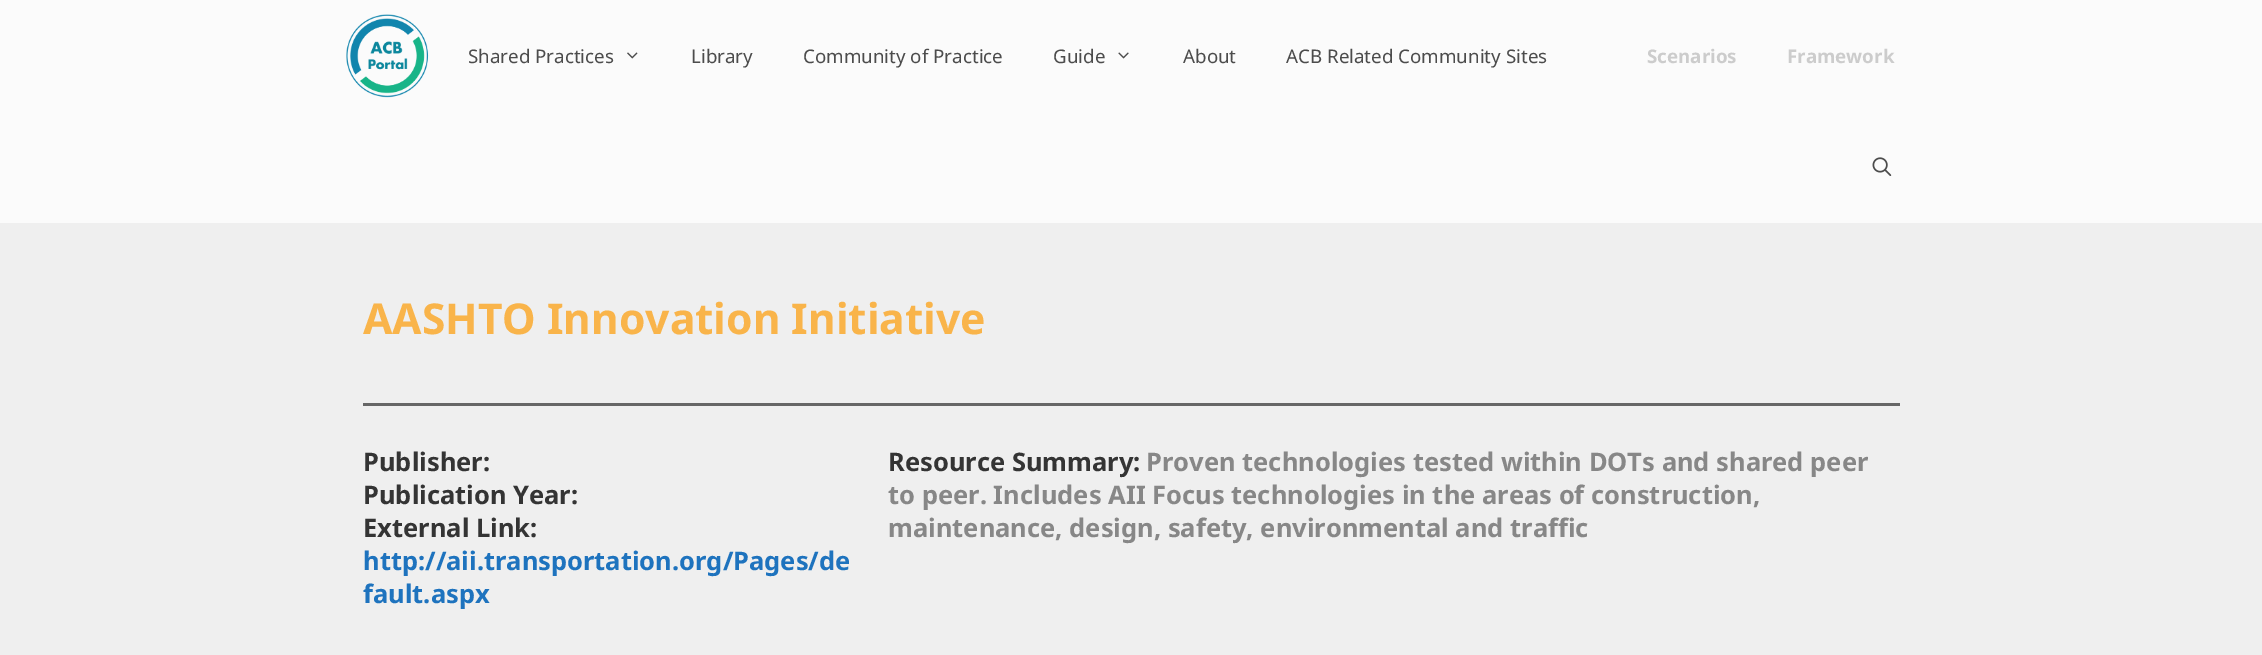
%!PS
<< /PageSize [2262 655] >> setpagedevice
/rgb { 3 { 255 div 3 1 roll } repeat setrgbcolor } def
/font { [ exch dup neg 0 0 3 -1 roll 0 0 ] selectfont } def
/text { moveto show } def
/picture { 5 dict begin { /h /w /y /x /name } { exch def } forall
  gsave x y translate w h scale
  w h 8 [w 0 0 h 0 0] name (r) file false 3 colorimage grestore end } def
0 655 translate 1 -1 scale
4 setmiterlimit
239 239 239 rgb
0 0 2262 655 rectfill
251 251 251 rgb
0 0 2262 223 rectfill
(img_01.rgb) 346 14 83 84 picture
(img_02.rgb) 627 52 11 7 picture
(img_03.rgb) 1118 52 11 7 picture
(img_04.rgb) 1872 157 20 19 picture
102 102 102 rgb
363 403 1537 3 rectfill
/NotoSans-Regular 18.75 font
76 76 76 rgb
(Shared Practices) 468 63 text
(Library) 691 63 text
(Community of Practice) 803 63 text
(Guide) 1053 63 text
(About) 1183 63 text
(ACB Related Community Sites) 1286 63 text
/NotoSans-Bold 18.75 font
204 204 204 rgb
(Scenarios) 1647 63 text
(Framework) 1787 63 text
/NotoSans-Bold 42.5 font
249 180 74 rgb
(AASHTO Innovation Initiative) 363 334 text
/NotoSans-Bold 25.5 font
52 52 52 rgb
(Publisher:) 363 471 text
(Publication Year:) 363 504 text
(External Link:) 363 537 text
30 115 190 rgb
(http://aii.transportation.org/Pages/de) 363 570 text
(fault.aspx) 363 603 text
52 52 52 rgb
(Resource Summary:) 888 471 text
135 135 135 rgb
(Proven technologies tested within DOTs and shared peer) 1146 471 text
(to peer. Includes AII Focus technologies in the areas of construction,) 888 504 text
(maintenance, design, safety, environmental and traffic) 888 537 text
showpage
